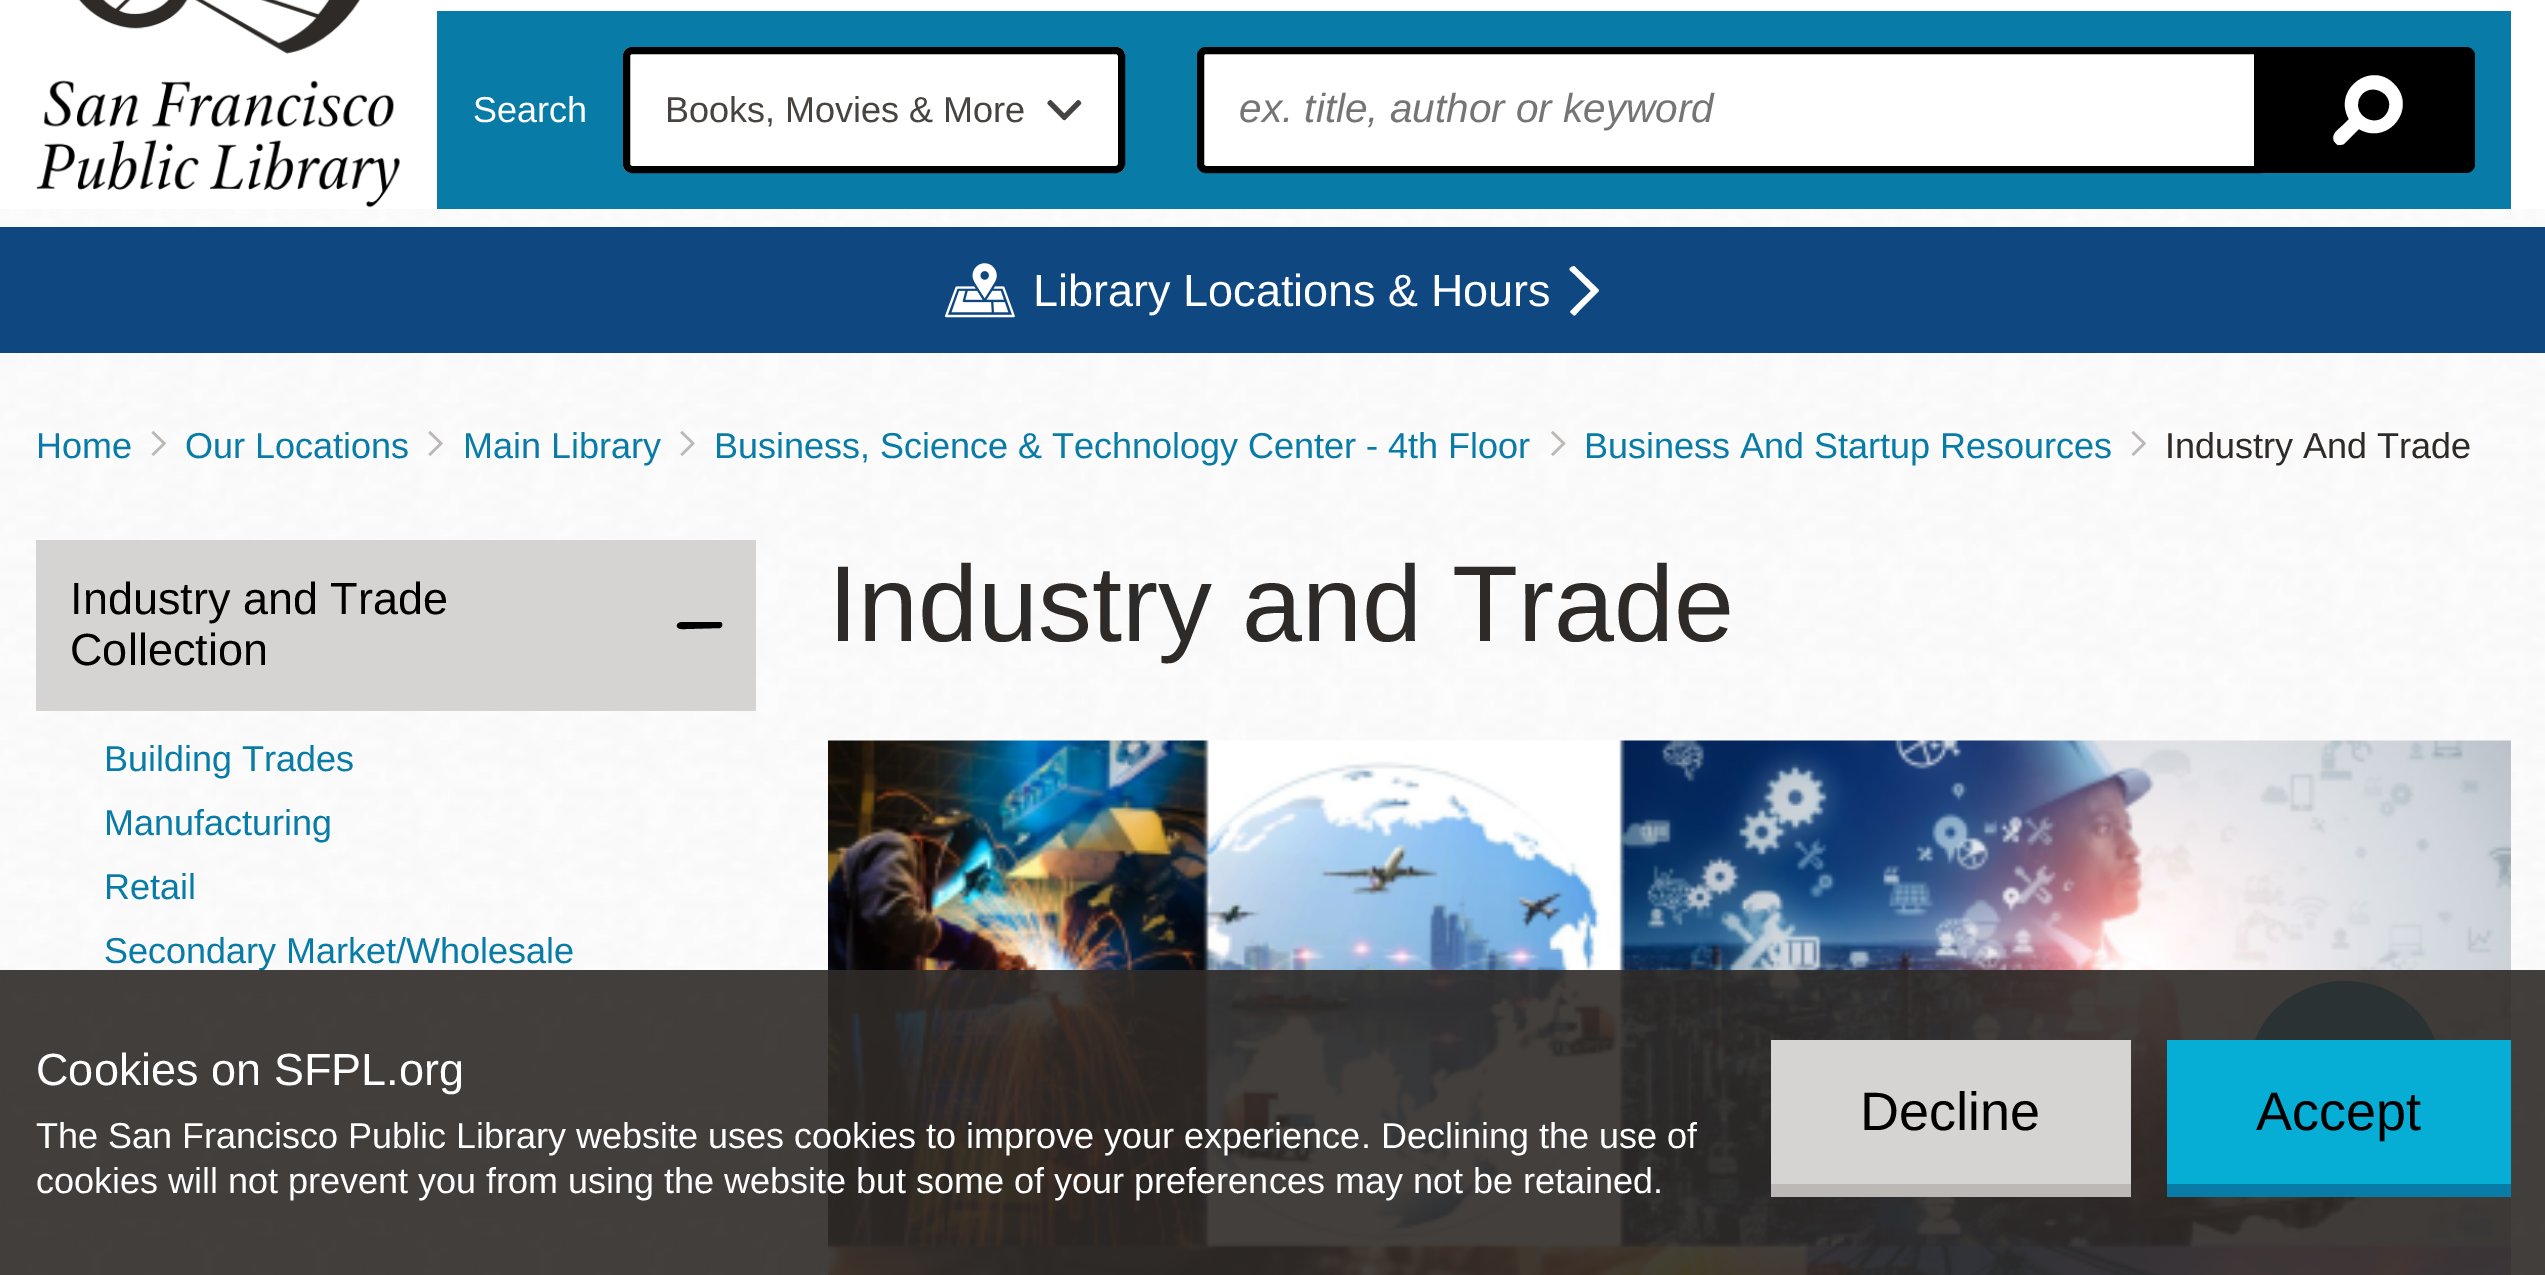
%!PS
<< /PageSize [2545 1275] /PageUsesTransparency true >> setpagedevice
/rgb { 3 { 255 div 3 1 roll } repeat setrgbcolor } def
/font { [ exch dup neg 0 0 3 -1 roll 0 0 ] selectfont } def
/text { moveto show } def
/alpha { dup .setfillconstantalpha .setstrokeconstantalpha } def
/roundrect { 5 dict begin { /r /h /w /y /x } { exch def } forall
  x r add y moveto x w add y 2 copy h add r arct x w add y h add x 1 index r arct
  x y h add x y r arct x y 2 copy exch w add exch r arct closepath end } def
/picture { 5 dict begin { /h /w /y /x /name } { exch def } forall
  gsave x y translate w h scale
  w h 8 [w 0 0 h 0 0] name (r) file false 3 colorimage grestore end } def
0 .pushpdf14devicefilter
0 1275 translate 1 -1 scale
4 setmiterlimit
255 255 255 rgb
0 0 2545 1275 rectfill
(img_01.rgb) 0 209 2545 1066 picture
(img_02.rgb) 36 0 364 208 picture
8 124 167 rgb
437 11 2074 198 rectfill
255 255 255 rgb
623 47 502 126 9 roundrect fill
(img_03.rgb) 1047 100 35 21 picture
0 0 0 rgb
7 setlinewidth
626.5 50.5 495 119 5.5 roundrect stroke
255 255 255 rgb
1206 50.5 moveto 1051.5 0 rlineto 0 119 rlineto -1051.5 0 rlineto -3 0 -5.5 -2.5 -5.5 -5.5 rcurveto 0 -108 rlineto 0 -3 2.5 -5.5 5.5 -5.5 rcurveto closepath gsave fill grestore
0 0 0 rgb
stroke
2261 47 moveto 205 0 rlineto 5 0 9 4 9 9 rcurveto 0 108 rlineto 0 5 -4 9 -9 9 rcurveto -205 0 rlineto closepath fill
255 255 255 rgb
2394 84 moveto 24 24 -6 62 -35 45 rcurveto -15 15 rlineto -2 1 -4 1 -6 1 rcurveto -2 -1 -3 -3 -4 -4 rcurveto -3 -7 4 -11 8 -15 rcurveto 7 -7 rlineto -17 -29 22 -59 45 -35 rcurveto closepath 2359 99 moveto -7 19 21 31 29 12 rcurveto 8 -19 -21 -31 -29 -12 rcurveto closepath fill
15 72 128 rgb
0 227 2545 126 rectfill
(img_04.rgb) 945 263 70 55 picture
255 255 255 rgb
1599 290 moveto -25 -24 rlineto -1 0 -2 1 -3 1 rcurveto -3 3 -1 3 3 7 rcurveto 17 17 rlineto -2 2 -21 20 -21 21 rcurveto 2 2 rlineto 3 3 3 1 7 -3 rcurveto 20 -20 rlineto closepath fill
(img_05.rgb) 151 431 15 25 picture
(img_06.rgb) 428 431 15 25 picture
(img_07.rgb) 680 431 15 25 picture
(img_08.rgb) 1551 431 15 25 picture
(img_09.rgb) 2131 431 15 25 picture
(img_10.rgb) 828 740 1683 535 picture
8 124 167 rgb
2345 981 moveto -48 0 -96 36 -94 88 rcurveto 1 15 6 30 15 42 rcurveto -4 36 rlineto 0 2 -3 13 4 11 rcurveto 37 -17 rlineto 21 9 45 11 67 6 rcurveto 19 -5 37 -15 49 -30 rcurveto 13 -14 20 -32 20 -51 rcurveto 0 -51 -46 -85 -94 -85 rcurveto closepath fill
214 212 210 rgb
36 540 720 171 rectfill
0 0 0 rgb
720 622 moveto -36 0 rlineto -3 0 -6 0 -7 3 rcurveto -1 5 7 4 9 4 rcurveto 34 -1 rlineto 3 -1 3 -6 0 -6 rcurveto closepath fill
/LiberationSans-Regular 36 font
255 255 255 rgb
(Search) 473 122 text
71 67 64 rgb
(Books, Movies & More) 665 122 text
/LiberationSans-Italic 40.5 font
117 117 117 rgb
(ex. title, author or keyword) 1239 122 text
/LiberationSans-Regular 45 font
255 255 255 rgb
(Library Locations & Hours) 1033 306 text
/LiberationSans-Regular 36 font
8 124 167 rgb
(Home) 36 458 text
(Our Locations) 185 458 text
(Main Library) 463 458 text
(Business, Science & Technology Center - 4th Floor) 714 458 text
(Business And Startup Resources) 1584 458 text
46 42 39 rgb
(Industry And Trade) 2165 458 text
/LiberationSans-Regular 45 font
0 0 0 rgb
(Industry and Trade) 70 614 text
(Collection) 70 665 text
/LiberationSans-Regular 36 font
8 124 167 rgb
(Building Trades) 104 771 text
(Manufacturing) 104 835 text
(Retail) 104 899 text
(Secondary Market/Wholesale) 104 963 text
/LiberationSans-Regular 108 font
46 42 39 rgb
(Industry and Trade) 828 641 text
0.9 alpha
0 970 2545 305 rectfill
/LiberationSans-Regular 45 font
1 alpha
255 255 255 rgb
(Cookies on SFPL.org) 36 1085 text
/LiberationSans-Regular 36 font
(The San Francisco Public Library website uses cookies to improve your experience. Declining the use of) 36 1148 text
(cookies will not prevent you from using the website but some of your preferences may not be retained.) 36 1193 text
187 184 181 rgb
1771 1184 moveto 0 13 rlineto 360 0 rlineto 0 -144 rlineto 0 131 rlineto closepath fill
214 212 210 rgb
1771 1040 360 144 rectfill
/LiberationSans-Regular 54 font
0 0 0 rgb
(Decline) 1860 1130 text
8 124 167 rgb
2167 1184 344 13 rectfill
6 174 213 rgb
2167 1040 344 144 rectfill
0 0 0 rgb
(Accept) 2256 1130 text
.poppdf14devicefilter showpage
